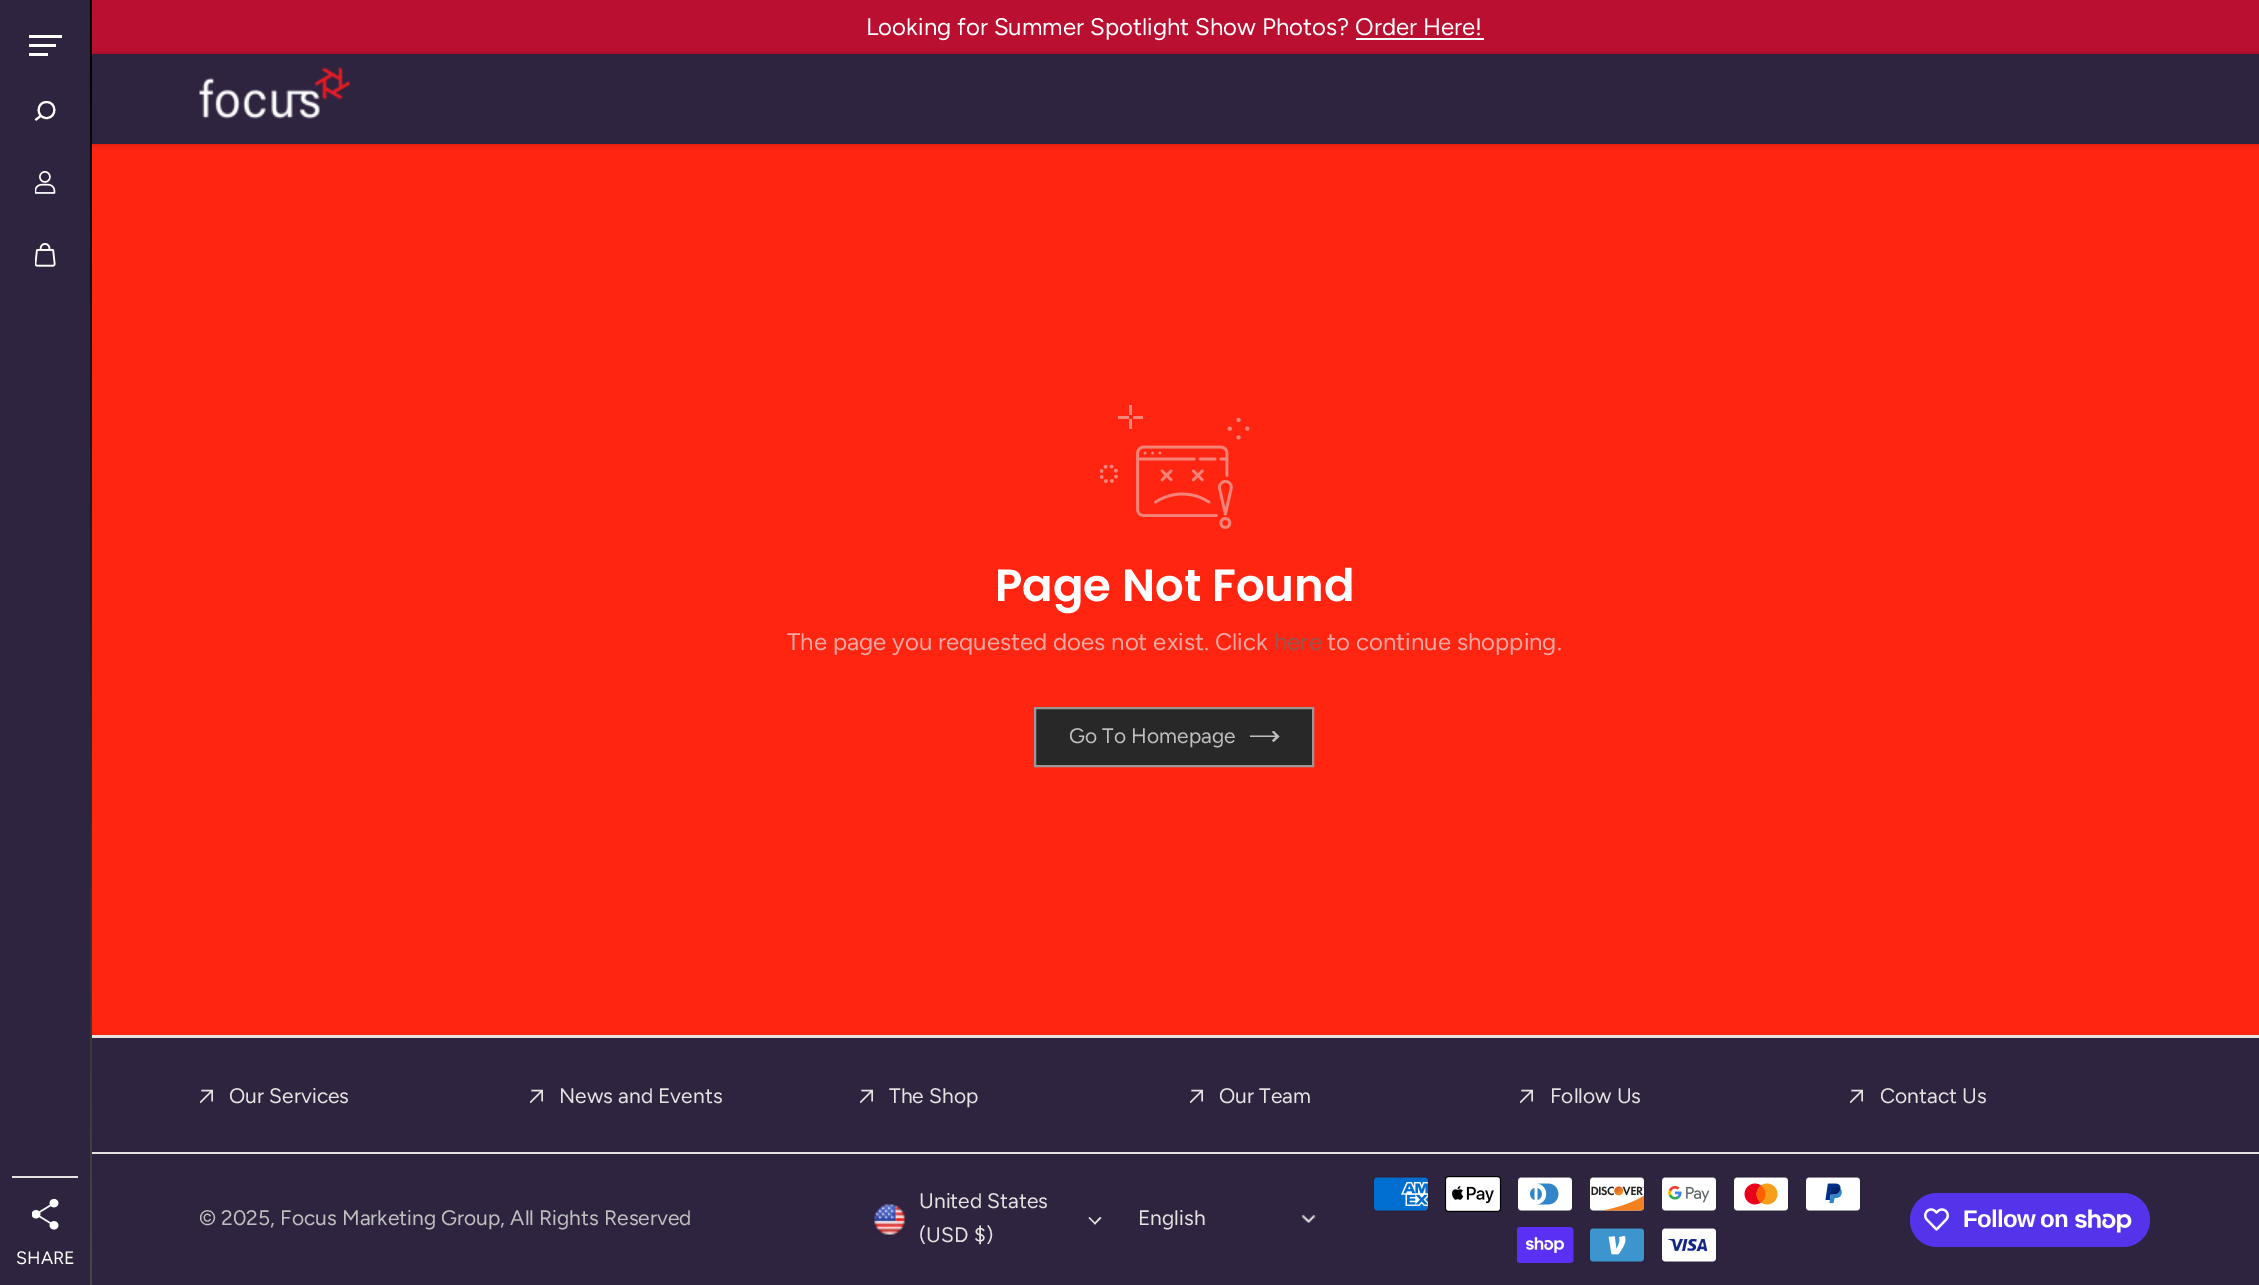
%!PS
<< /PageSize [2259 1285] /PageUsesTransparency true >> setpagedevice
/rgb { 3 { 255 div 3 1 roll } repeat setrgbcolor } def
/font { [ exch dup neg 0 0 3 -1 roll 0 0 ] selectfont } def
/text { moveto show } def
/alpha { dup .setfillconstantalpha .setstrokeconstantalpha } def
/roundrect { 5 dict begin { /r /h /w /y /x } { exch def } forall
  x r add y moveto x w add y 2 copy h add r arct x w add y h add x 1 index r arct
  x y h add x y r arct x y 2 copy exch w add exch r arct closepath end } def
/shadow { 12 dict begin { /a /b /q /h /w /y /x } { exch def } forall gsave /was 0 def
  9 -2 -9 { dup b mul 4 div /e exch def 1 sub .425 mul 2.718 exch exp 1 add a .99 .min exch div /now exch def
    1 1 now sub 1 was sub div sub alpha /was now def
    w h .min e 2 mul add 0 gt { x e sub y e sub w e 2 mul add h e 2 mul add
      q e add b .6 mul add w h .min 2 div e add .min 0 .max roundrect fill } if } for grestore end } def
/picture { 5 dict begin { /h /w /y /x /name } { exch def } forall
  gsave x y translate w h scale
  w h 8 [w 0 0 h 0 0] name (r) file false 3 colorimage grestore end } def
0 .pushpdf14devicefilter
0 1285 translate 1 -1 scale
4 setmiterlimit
255 37 17 rgb
0 0 2259 1285 rectfill
186 15 48 rgb
92 0 2167 54 rectfill
255 255 255 rgb
1356 38 128 2 rectfill
(img_01.rgb) 1100 405 150 124 picture
40 40 40 rgb
1035 708 moveto 278 0 rlineto 0 58 rlineto -278 0 rlineto closepath gsave fill grestore
153 151 151 rgb
2 setlinewidth
stroke
gsave
1250 731 30 12 rectclip
191 191 191 rgb
1273.5 730.5 moveto -1.5 1.5 rlineto 3.5 3.5 rlineto -26 0 rlineto 0 1.5 rlineto 26 0 rlineto -3.5 3.5 rlineto 1.5 1.5 rlineto 6 -5.5 rlineto closepath fill
grestore
47 36 64 rgb
92 1038 2167 247 rectfill
229 226 225 rgb
90 1035 2169 3 rectfill
(img_02.rgb) 200 1089 13 15 picture
(img_02.rgb) 530 1089 13 15 picture
(img_02.rgb) 860 1089 13 15 picture
(img_02.rgb) 1190 1089 13 15 picture
(img_02.rgb) 1520 1089 13 15 picture
(img_02.rgb) 1850 1089 13 15 picture
90 1152 2169 2 rectfill
(img_03.rgb) 874 1204 31 32 picture
1100 1217 moveto 1.5 1 rlineto -6.5 6.5 rlineto -1 -1 rlineto closepath fill
1089.5 1217 moveto 6.5 6.5 rlineto -1 1 rlineto -6.5 -6.5 rlineto closepath fill
(img_04.rgb) 1302 1215 14 8 picture
(img_05.rgb) 1373 1176 56 36 picture
(img_06.rgb) 1445 1176 57 36 picture
(img_07.rgb) 1517 1176 56 36 picture
(img_08.rgb) 1589 1176 56 36 picture
(img_09.rgb) 1661 1176 56 36 picture
(img_10.rgb) 1733 1176 56 36 picture
(img_11.rgb) 1805 1176 56 36 picture
(img_12.rgb) 1517 1227 57 36 picture
(img_13.rgb) 1589 1227 57 36 picture
(img_14.rgb) 1661 1227 56 36 picture
84 51 235 rgb
1910 1193 240 54 27 roundrect fill
(img_15.rgb) 1924 1208 25 23 picture
(img_16.rgb) 2075 1209 57 24 picture
0 0 0 rgb
90 54 2169 90 0 3 0.21 shadow
47 36 64 rgb
92 54 2167 90 rectfill
(img_17.rgb) 199 67 151 52 picture
gsave 90 0 moveto 2 0 rlineto 0 1285 rlineto -2 0 rlineto closepath clip newpath
<< /ShadingType 2 /ColorSpace /DeviceRGB /Coords [91 0 92 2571] /Extend [true true] /Function << /FunctionType 3 /Domain [0 1] /Functions [<< /FunctionType 2 /Domain [0 1] /C0 [0 0 0] /C1 [0.282 0.275 0.275] /N 1 >> << /FunctionType 2 /Domain [0 1] /C0 [0.282 0.275 0.275] /C1 [0 0 0] /N 1 >>] /Bounds [0.5] /Encode [0 1 0 1] >> >> shfill grestore
0 0 90 1285 rectfill
255 255 255 rgb
29 35 33 3 rectfill
29 44 27 3 rectfill
29 53 19 3 rectfill
46.5 118 moveto -10.5 0 -10.5 -16 0 -16 rcurveto 10.5 0 10.5 16 0 16 rcurveto closepath 40.5 116 moveto -5 4 rlineto stroke
(img_18.rgb) 35 171 21 23 picture
(img_19.rgb) 35 243 21 24 picture
229 226 225 rgb
12 1176 66 2 rectfill
(img_20.rgb) 32 1198 27 32 picture
/Figtree-Regular 24 font
255 255 255 rgb
(Looking for Summer Spotlight Show Photos? Order Here!) 866 35 text
/Poppins-SemiBold 45 font
(Page Not Found) 995 601 text
/Figtree-Regular 24 font
237 169 163 rgb
(The page you requested does not exist. Click) 787 650 text
150 85 79 rgb
(here) 1274 650 text
237 169 163 rgb
(to continue shopping.) 1327 650 text
/Figtree-Regular 21 font
191 191 191 rgb
(Go To Homepage) 1069 743 text
229 226 225 rgb
(Our Services) 229 1103 text
(News and Events) 559 1103 text
(The Shop) 889 1103 text
(Our Team) 1219 1103 text
(Follow Us) 1550 1103 text
(Contact Us) 1880 1103 text
191 191 191 rgb
(© 2025, Focus Marketing Group, All Rights Reserved) 199 1225 text
229 226 225 rgb
(United States) 919 1208 text
(\(USD $\)) 919 1242 text
(English) 1138 1225 text
/LiberationSans-Bold 24 font
255 255 255 rgb
1963 1227 moveto -0.75 0 (Follow on) ashow
/Figtree-Regular 18 font
(SHARE) 16 1264 text
.poppdf14devicefilter showpage
